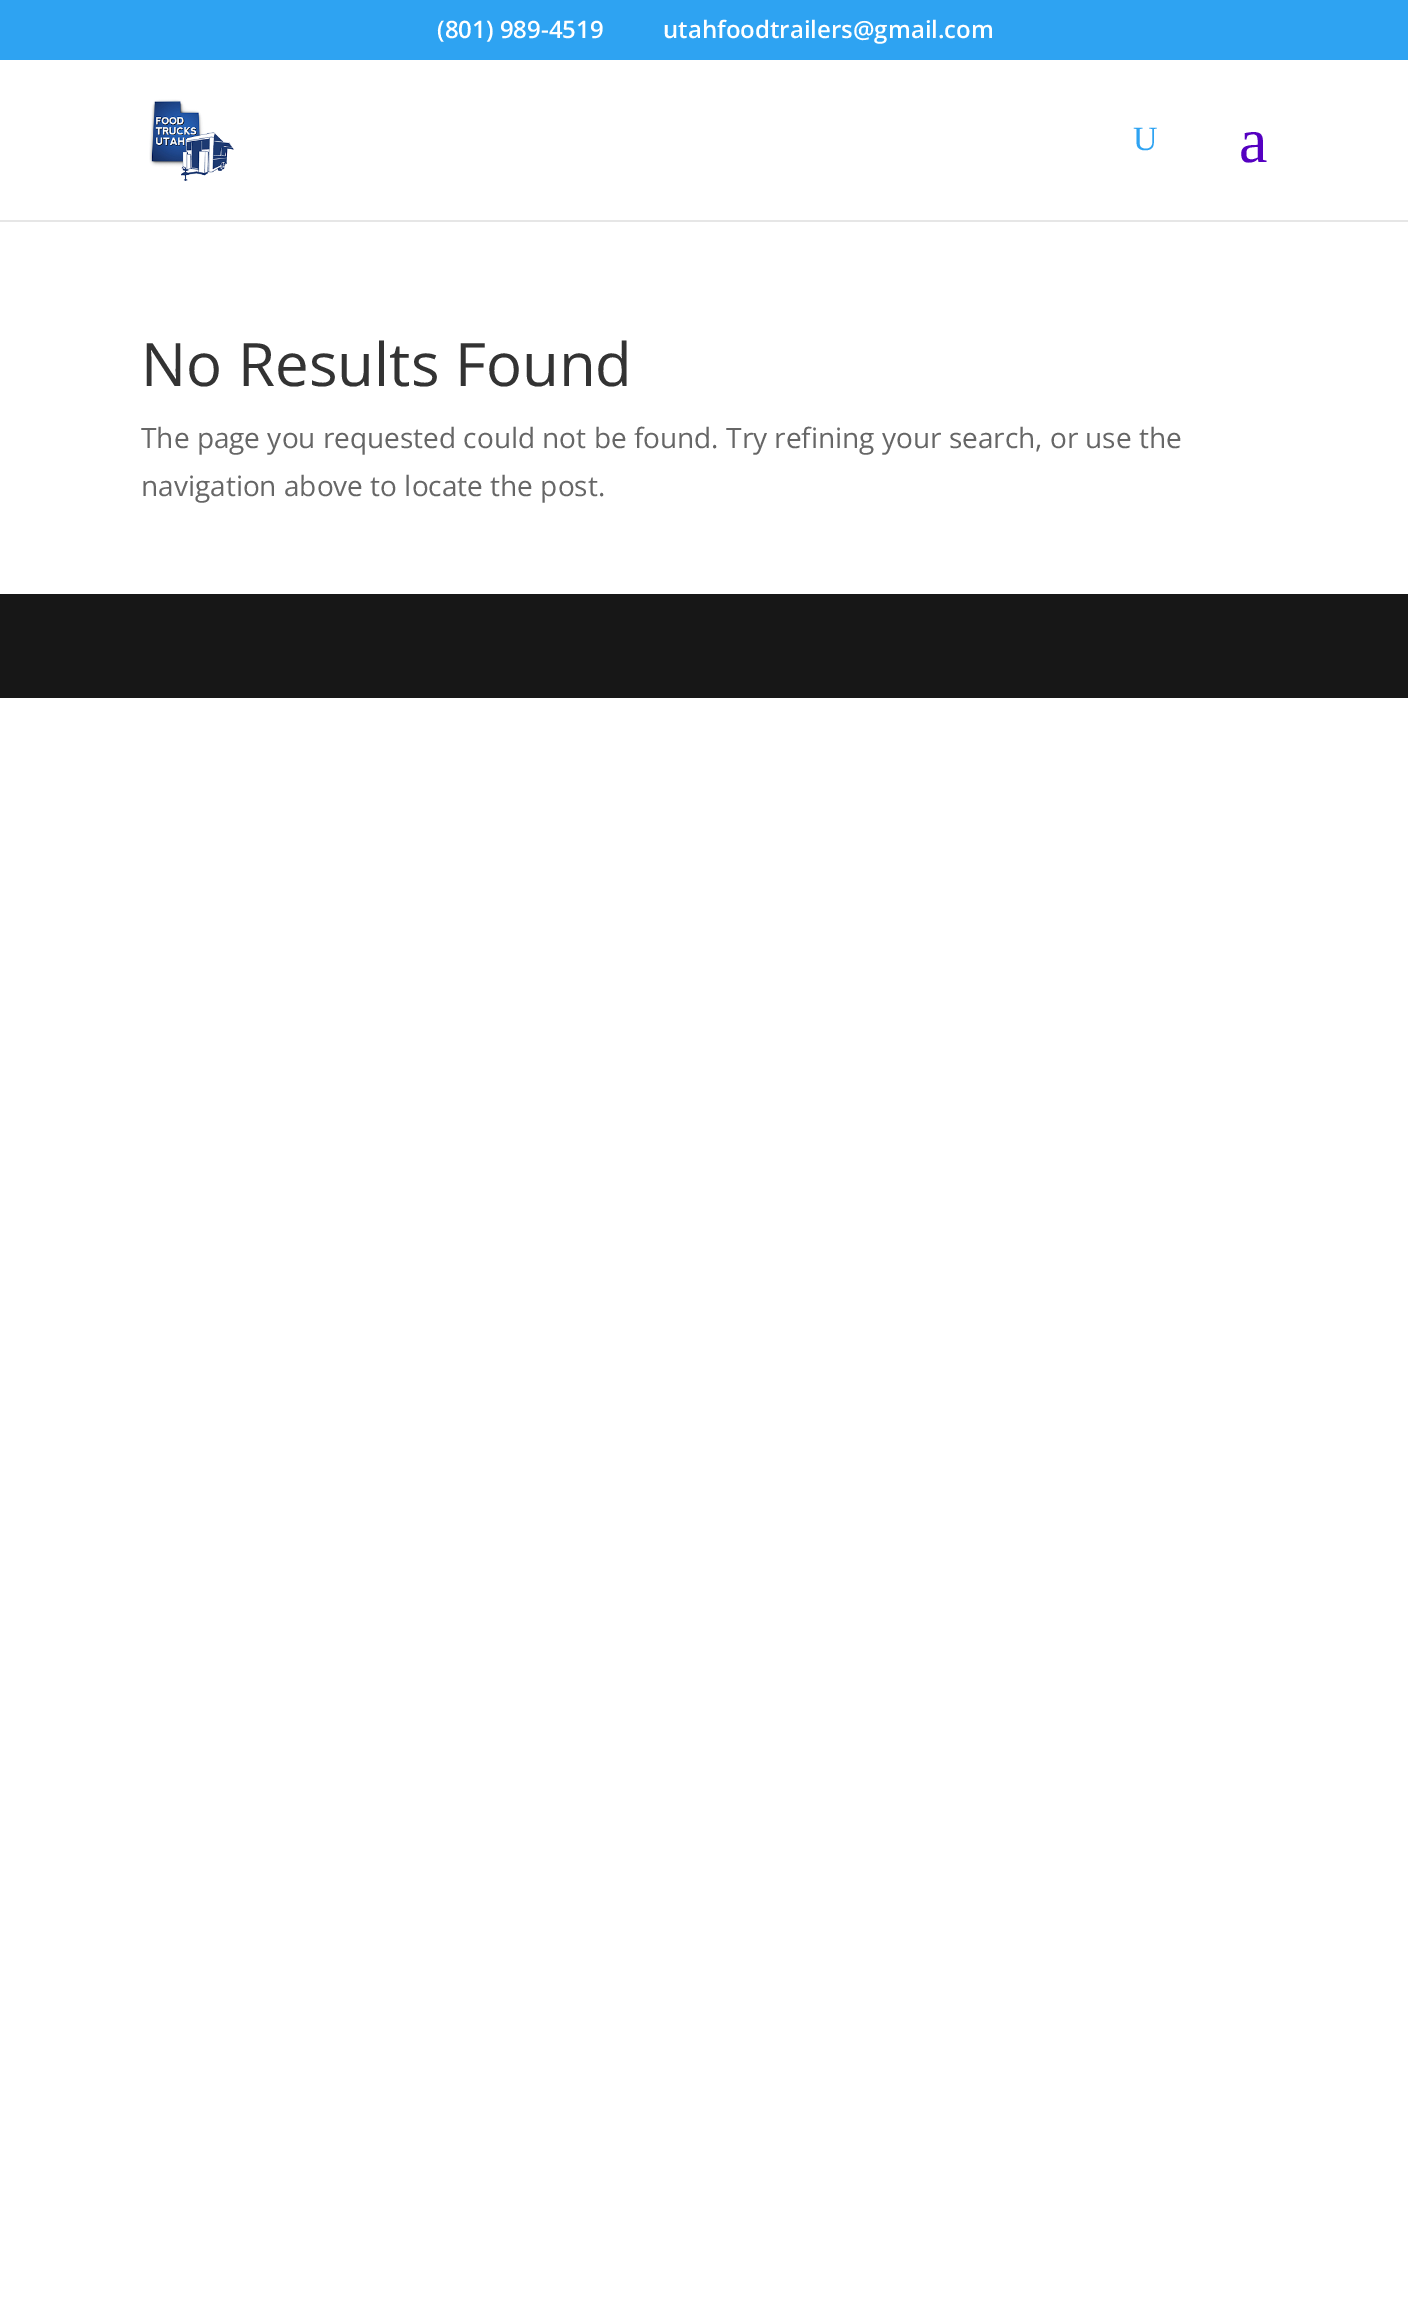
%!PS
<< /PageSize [1408 2301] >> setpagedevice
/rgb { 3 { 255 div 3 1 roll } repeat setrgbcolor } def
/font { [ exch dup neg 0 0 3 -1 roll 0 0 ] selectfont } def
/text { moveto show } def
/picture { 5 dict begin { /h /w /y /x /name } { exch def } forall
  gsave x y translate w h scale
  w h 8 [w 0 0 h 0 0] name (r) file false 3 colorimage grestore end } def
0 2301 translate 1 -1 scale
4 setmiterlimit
255 255 255 rgb
0 0 1408 2301 rectfill
46 163 242 rgb
0 0 1408 60 rectfill
230 230 230 rgb
0 220 1408 2 rectfill
(img_01.rgb) 149 99 85 82 picture
23 23 23 rgb
0 594 1408 104 rectfill
/OpenSans-SemiBold 24 font
255 255 255 rgb
(\(801\) 989-4519) 437 38 text
(utahfoodtrailers@gmail.com) 663 38 text
/LiberationSerif-Regular 34 font
46 163 242 rgb
(U) 1133 150 text
/LiberationSerif-Regular 64 font
85 0 193 rgb
(a) 1239 162 text
/OpenSans-Regular 60 font
51 51 51 rgb
(No Results Found) 141 386 text
/OpenSans-Regular 28 font
102 102 102 rgb
(The page you requested could not be found. Try refining your search, or use the) 141 448 text
(navigation above to locate the post.) 141 496 text
showpage
